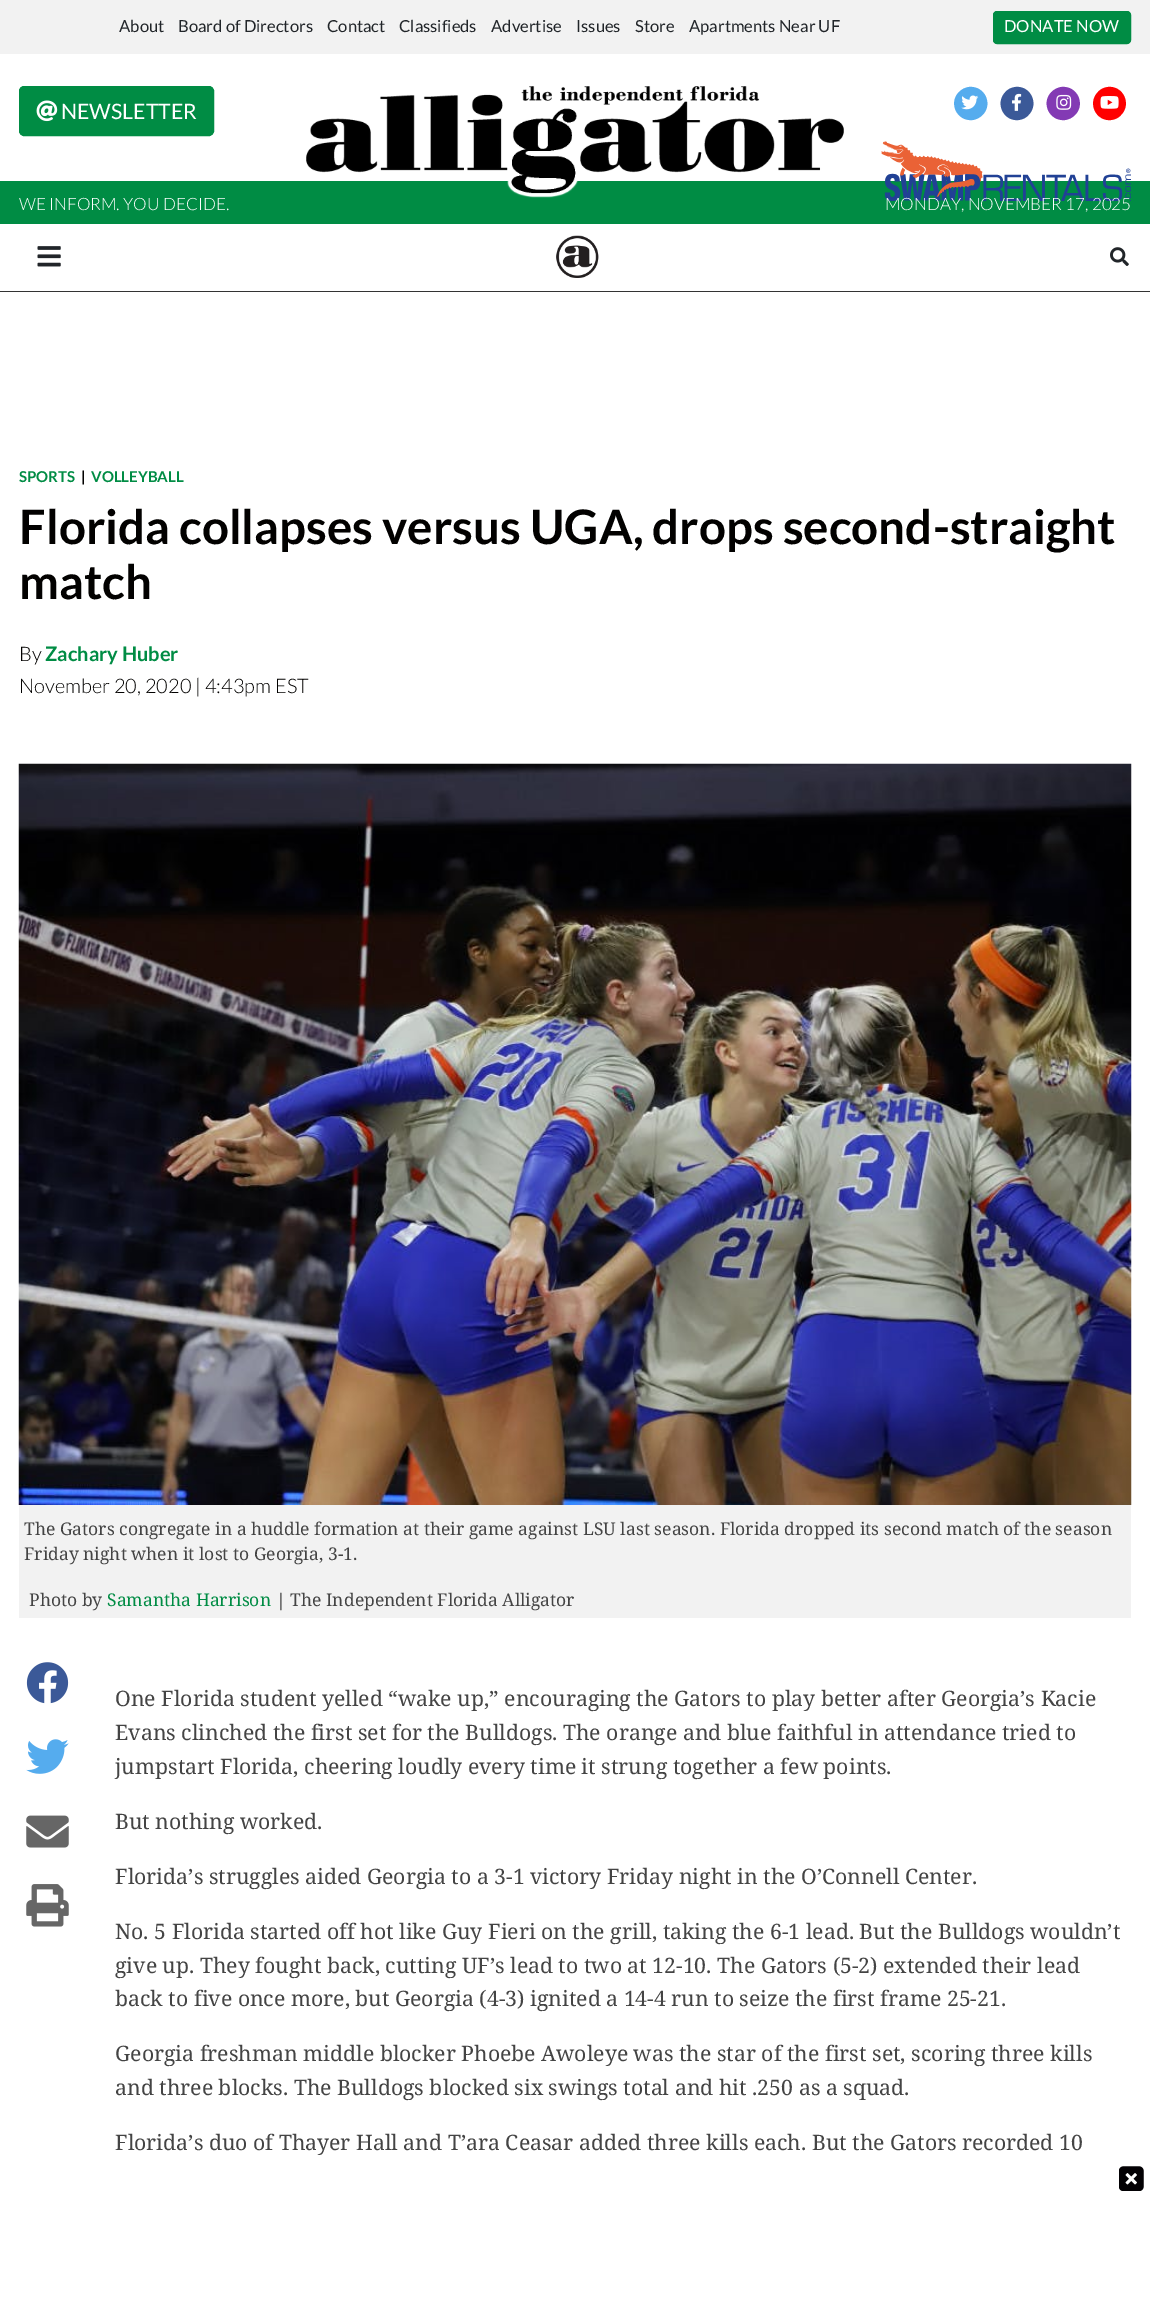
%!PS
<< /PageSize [1150 2300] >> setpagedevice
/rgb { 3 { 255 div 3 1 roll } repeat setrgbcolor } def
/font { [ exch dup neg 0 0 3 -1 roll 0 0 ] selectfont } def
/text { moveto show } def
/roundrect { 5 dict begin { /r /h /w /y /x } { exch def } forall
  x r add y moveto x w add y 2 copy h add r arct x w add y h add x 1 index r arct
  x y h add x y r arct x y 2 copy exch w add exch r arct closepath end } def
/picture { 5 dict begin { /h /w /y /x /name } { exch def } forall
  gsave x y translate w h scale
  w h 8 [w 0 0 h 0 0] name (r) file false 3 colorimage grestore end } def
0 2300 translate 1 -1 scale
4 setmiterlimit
255 255 255 rgb
0 0 1150 2300 rectfill
242 242 242 rgb
0 0 1150 54 rectfill
0 140 68 rgb
993.5 11.5 137 32 3.5 roundrect gsave fill grestore
stroke
19.5 86.5 194 49 4.5 roundrect gsave fill grestore
stroke
(img_01.rgb) 36 100 22 22 picture
0 181 1150 43 rectfill
(img_02.rgb) 306 86 538 112 picture
85 172 238 rgb
959 92 moveto 3 -3 6.5 -4.5 10 -5 rcurveto 15.5 -1.5 24.5 17 13.5 28 rcurveto -3 3 -6.5 4.5 -10 5 rcurveto -15.5 1.5 -24.5 -17 -13.5 -28 rcurveto closepath fill
(img_03.rgb) 961 95 18 15 picture
59 89 152 rgb
1005.5 92 moveto 2.5 -3 6 -4.5 10 -5 rcurveto 15 -1.5 24 17 13 28 rcurveto -2.5 3 -6 4.5 -10 5 rcurveto -15 1.5 -24 -17 -13 -28 rcurveto closepath fill
(img_04.rgb) 1012 93 10 18 picture
131 58 180 rgb
1051.5 92 moveto 3 -3 6.5 -4.5 10 -5 rcurveto 15.5 -1.5 24.5 17 13.5 28 rcurveto -3 3 -6.5 4.5 -10 5 rcurveto -15.5 1.5 -24.5 -17 -13.5 -28 rcurveto closepath fill
(img_05.rgb) 1056 94 16 16 picture
255 0 0 rgb
1098 92 moveto 2.5 -3 6 -4.5 10 -5 rcurveto 15 -1.5 24 17 13 28 rcurveto -2.5 3 -6 4.5 -10 5 rcurveto -15 1.5 -24 -17 -13 -28 rcurveto closepath fill
(img_06.rgb) 1100 96 19 13 picture
(img_07.rgb) 881 141 250 60 picture
51 51 51 rgb
0 291 1150 1 rectfill
(img_08.rgb) 37 246 24 21 picture
(img_09.rgb) 556 235 43 43 picture
(img_10.rgb) 1110 247 19 19 picture
242 242 242 rgb
19 1505 1112 113 rectfill
(img_11.rgb) 18 763 1114 742 picture
(img_12.rgb) 26 1662 43 42 picture
(img_13.rgb) 26 1739 43 35 picture
(img_14.rgb) 26 1815 43 33 picture
(img_15.rgb) 26 1884 43 43 picture
(img_16.rgb) 1119 2166 25 25 picture
/Lato-Regular 16.6 font
33 37 41 rgb
(About) 119 32 text
(Board of Directors) 178 32 text
(Contact) 327 32 text
(Classifieds) 399 32 text
(Advertise) 491 32 text
(Issues) 576 32 text
(Store) 635 32 text
(Apartments Near UF) 689 32 text
255 255 255 rgb
(DONATE NOW) 1004 32 text
/Lato-Regular 21.25 font
(NEWSLETTER) 61 119 text
/Lato-Light 17 font
(WE INFORM. YOU DECIDE.) 19 210 text
(MONDAY, NOVEMBER 17, 2025) 885 210 text
/Lato-Bold 15 font
0 140 68 rgb
(SPORTS) 19 482 text
2 1 0 rgb
(|) 81 482 text
0 140 68 rgb
(VOLLEYBALL) 91 482 text
/Lato-Bold 47.5 font
2 1 0 rgb
(Florida collapses versus UGA, drops second-straight) 19 544 text
(match) 19 599 text
/Lato-Light 20 font
(By) 19 661 text
/Lato-Bold 20 font
0 140 68 rgb
(Zachary Huber) 45 661 text
/Lato-Light 20 font
2 1 0 rgb
(November 20, 2020 | 4:43pm EST) 19 693 text
/NotoSerif-Regular 17.5 font
68 68 68 rgb
(The Gators congregate in a huddle formation at their game against LSU last season. Florida dropped its second match of the season) 24 1535 text
(Friday night when it lost to Georgia, 3-1.) 24 1560 text
(Photo by) 29 1606 text
0 140 68 rgb
(Samantha Harrison) 107 1606 text
68 68 68 rgb
(| The Independent Florida Alligator) 276 1606 text
/NotoSerif-Regular 21.25 font
(One Florida student yelled “wake up,” encouraging the Gators to play better after Georgia’s Kacie) 115 1706 text
(Evans clinched the first set for the Bulldogs. The orange and blue faithful in attendance tried to) 115 1740 text
(jumpstart Florida, cheering loudly every time it strung together a few points.) 115 1774 text
(But nothing worked.) 115 1829 text
(Florida’s struggles aided Georgia to a 3-1 victory Friday night in the O’Connell Center.) 115 1884 text
(No. 5 Florida started off hot like Guy Fieri on the grill, taking the 6-1 lead. But the Bulldogs wouldn’t) 115 1939 text
(give up. They fought back, cutting UF’s lead to two at 12-10. The Gators \(5-2\) extended their lead) 115 1973 text
(back to five once more, but Georgia \(4-3\) ignited a 14-4 run to seize the first frame 25-21.) 115 2006 text
(Georgia freshman middle blocker Phoebe Awoleye was the star of the first set, scoring three kills) 115 2061 text
(and three blocks. The Bulldogs blocked six swings total and hit .250 as a squad.) 115 2095 text
(Florida’s duo of Thayer Hall and T’ara Ceasar added three kills each. But the Gators recorded 10) 115 2150 text
showpage
